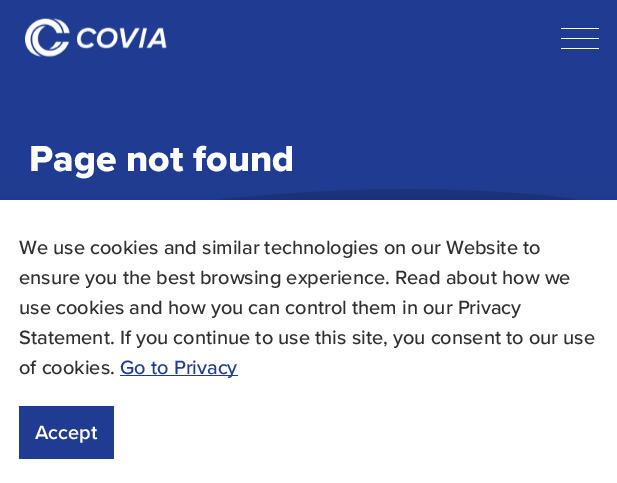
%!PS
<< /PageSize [617 483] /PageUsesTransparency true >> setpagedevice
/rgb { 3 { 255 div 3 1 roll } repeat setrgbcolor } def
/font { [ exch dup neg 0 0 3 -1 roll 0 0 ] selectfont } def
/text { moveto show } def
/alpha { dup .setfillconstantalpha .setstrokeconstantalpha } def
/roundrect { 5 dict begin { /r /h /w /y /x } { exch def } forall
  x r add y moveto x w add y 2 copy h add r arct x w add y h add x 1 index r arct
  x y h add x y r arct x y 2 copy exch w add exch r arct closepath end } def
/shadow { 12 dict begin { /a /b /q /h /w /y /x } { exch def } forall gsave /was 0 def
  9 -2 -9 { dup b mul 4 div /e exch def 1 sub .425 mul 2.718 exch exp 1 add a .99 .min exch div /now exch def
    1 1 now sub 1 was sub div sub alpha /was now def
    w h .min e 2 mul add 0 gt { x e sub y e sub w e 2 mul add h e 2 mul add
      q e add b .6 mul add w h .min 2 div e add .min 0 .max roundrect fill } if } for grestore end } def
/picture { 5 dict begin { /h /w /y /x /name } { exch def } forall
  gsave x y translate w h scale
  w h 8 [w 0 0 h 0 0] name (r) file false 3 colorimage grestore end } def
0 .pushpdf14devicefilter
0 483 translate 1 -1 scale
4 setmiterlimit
32 60 146 rgb
0 0 617 483 rectfill
(img_01.rgb) 25 18 142 39 picture
255 255 255 rgb
561 38 38 1 rectfill
561 28 38 1 rectfill
561 48 38 1 rectfill
27 51 124 rgb
617 206 moveto 0 195 rlineto -617 0 rlineto 0 -162 rlineto 88 -23 178 -37 269 -44 rcurveto 93 -8 189 -8 282 1 rcurveto 22 3 44 6 66 10 rcurveto closepath fill
0 0 0 rgb
0 200 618 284 0 9.5 0.1 shadow
255 255 255 rgb
0 200 617 283 rectfill
32 60 146 rgb
120 375 118 1 rectfill
19 406 95 53 rectfill
/ProximaNova-ExtraBold 37.5 font
255 255 255 rgb
(Page not found) 29 171 text
/ProximaNova-Medium 20 font
48 48 48 rgb
(We use cookies and similar technologies on our Website to) 19 254 text
(ensure you the best browsing experience. Read about how we) 19 284 text
(use cookies and how you can control them in our Privacy) 19 314 text
(Statement. If you continue to use this site, you consent to our use) 19 344 text
(of cookies.) 19 374 text
32 60 146 rgb
(Go to Privacy) 120 374 text
/ProximaNova-SemiBold 20 font
255 255 255 rgb
(Accept) 35 439 text
.poppdf14devicefilter showpage
